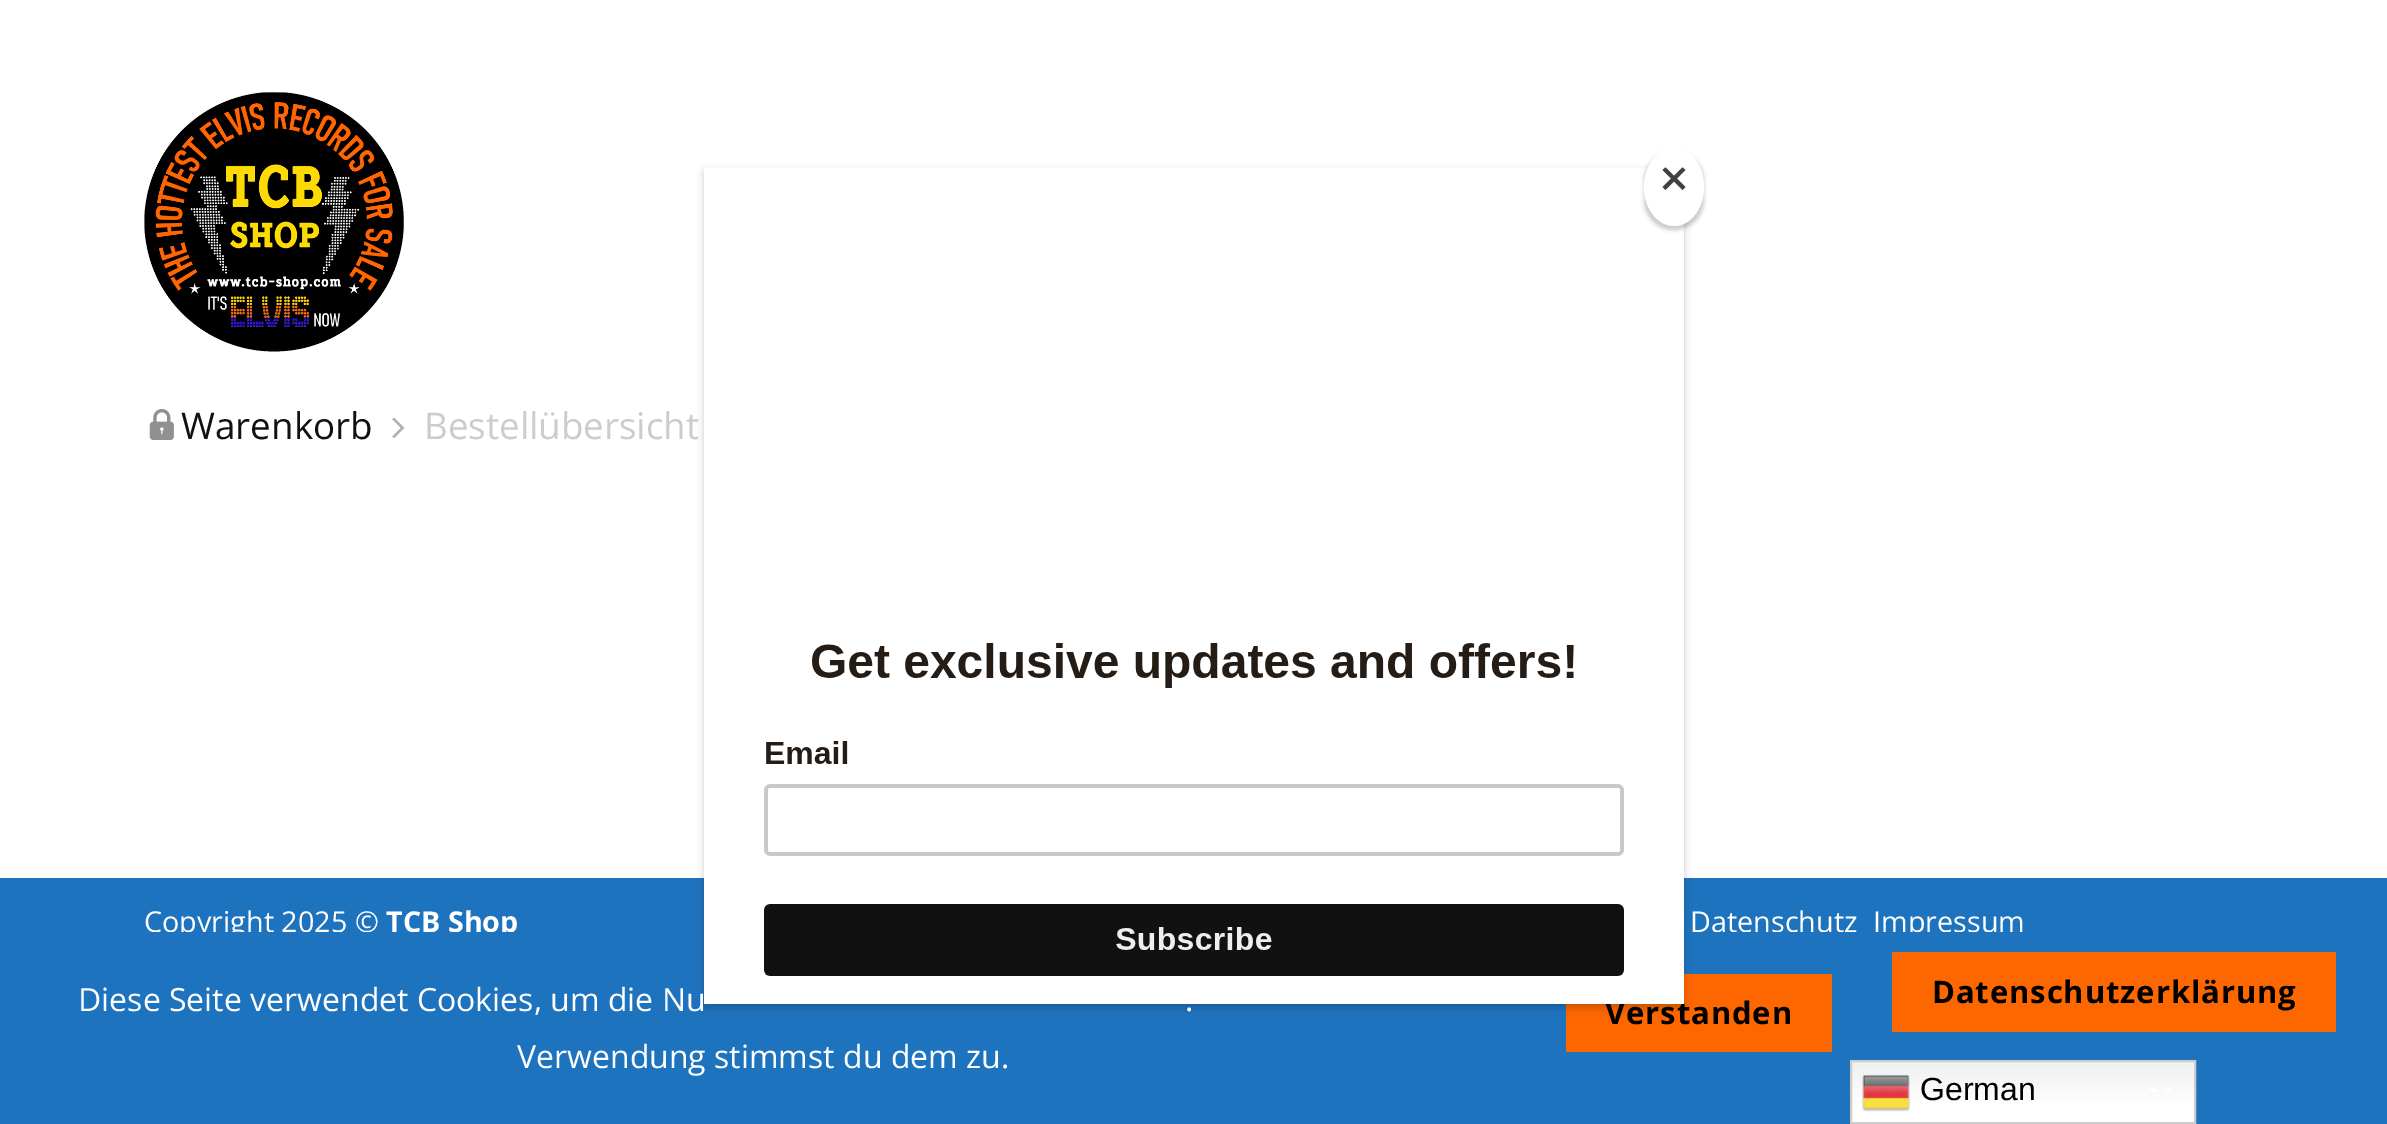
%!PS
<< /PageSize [2387 1124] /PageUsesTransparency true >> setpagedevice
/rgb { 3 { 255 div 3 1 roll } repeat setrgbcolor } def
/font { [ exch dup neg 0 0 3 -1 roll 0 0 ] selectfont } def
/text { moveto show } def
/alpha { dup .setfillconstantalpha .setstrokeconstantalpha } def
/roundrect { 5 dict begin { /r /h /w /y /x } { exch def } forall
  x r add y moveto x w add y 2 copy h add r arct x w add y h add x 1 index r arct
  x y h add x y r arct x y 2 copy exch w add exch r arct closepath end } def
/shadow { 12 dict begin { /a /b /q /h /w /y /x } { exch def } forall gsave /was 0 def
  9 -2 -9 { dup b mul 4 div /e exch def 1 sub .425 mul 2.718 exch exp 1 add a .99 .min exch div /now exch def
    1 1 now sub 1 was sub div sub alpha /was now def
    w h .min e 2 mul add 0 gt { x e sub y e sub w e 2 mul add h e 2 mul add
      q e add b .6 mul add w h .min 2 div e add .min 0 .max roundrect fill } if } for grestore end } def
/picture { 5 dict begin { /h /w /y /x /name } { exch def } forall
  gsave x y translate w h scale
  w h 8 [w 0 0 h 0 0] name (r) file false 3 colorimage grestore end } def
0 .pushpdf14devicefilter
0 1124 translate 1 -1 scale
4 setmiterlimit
30 115 190 rgb
0 0 2387 1124 rectfill
255 255 255 rgb
0 0 2387 878 rectfill
0 0 0 rgb
1644 152 60 78 30 2 0.2 shadow
(img_02.rgb) 144 92 260 260 picture
(img_03.rgb) 149 409 25 31 picture
(img_04.rgb) 392 417 13 21 picture
254 103 0 rgb
1566 974 266 78 rectfill
1892 952 444 80 rectfill
gsave 1852 1062 moveto 342 0 rlineto 0 60 rlineto -342 0 rlineto closepath clip newpath
<< /ShadingType 2 /ColorSpace /DeviceRGB /Coords [2023 1060 2023 1124] /Extend [true true] /Function << /FunctionType 3 /Domain [0 1] /Functions [<< /FunctionType 2 /Domain [0 1] /C0 [0.937 0.937 0.937] /C1 [1 1 1] /N 1 >> << /FunctionType 2 /Domain [0 1] /C0 [1 1 1] /C1 [1 1 1] /N 1 >>] /Bounds [0.7] /Encode [0 1 0 1] >> >> shfill grestore
204 204 204 rgb
2 setlinewidth
1851 1061 344 62 rectstroke
(img_05.rgb) 1862 1074 48 38 picture
(img_06.rgb) 2150 1087 22 5 picture
/OpenSans-Regular 36.75 font
17 17 17 rgb
(Warenkorb) 181 439 text
204 204 204 rgb
(Bestellübersicht) 424 439 text
/OpenSans-Regular 28.75 font
255 255 255 rgb
(Copyright 2025 ©) 144 932 text
/OpenSans-Bold 28.75 font
(TCB Shop) 386 932 text
/OpenSans-Regular 28.75 font
(Datenschutz) 1690 932 text
(Impressum) 1873 932 text
30 115 190 rgb
152 932 1839 7 rectfill
gsave
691 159 moveto 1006 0 rlineto 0 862 rlineto -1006 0 rlineto closepath 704 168 moveto 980 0 rlineto 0 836 rlineto -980 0 rlineto closepath eoclip newpath
0 0 0 rgb
704 172 980 836 0 4 0.2 shadow
grestore
255 255 255 rgb
1674 148 moveto 16.5 0 30 17.5 30 39 rcurveto 0 21.5 -13.5 39 -30 39 rcurveto -16.5 0 -30 -17.5 -30 -39 rcurveto 0 -21.5 13.5 -39 30 -39 rcurveto closepath fill
65 65 65 rgb
1682.5 167.5 moveto 3 2.5 rlineto -20 20 rlineto -3 -3 rlineto closepath fill
1662.5 170 moveto 3 -2.5 rlineto 20 19.5 rlineto -3 3 rlineto closepath fill
/OpenSans-Regular 32 font
255 255 255 rgb
(Diese Seite verwendet Cookies, um die Nu) 78 1011 text
(.) 1185 1011 text
(Verwendung stimmst du dem zu.) 517 1068 text
/OpenSans-Bold 31 font
0 0 0 rgb
1605 1024 moveto 0.9 0 (Verstanden) ashow
(img_01.rgb) 704 411 980 593 picture
1932 1003 moveto 0.9 0 (Datenschutzerklärung) ashow
/LiberationSans-Regular 32 font
(German) 1920 1100 text
.poppdf14devicefilter showpage
